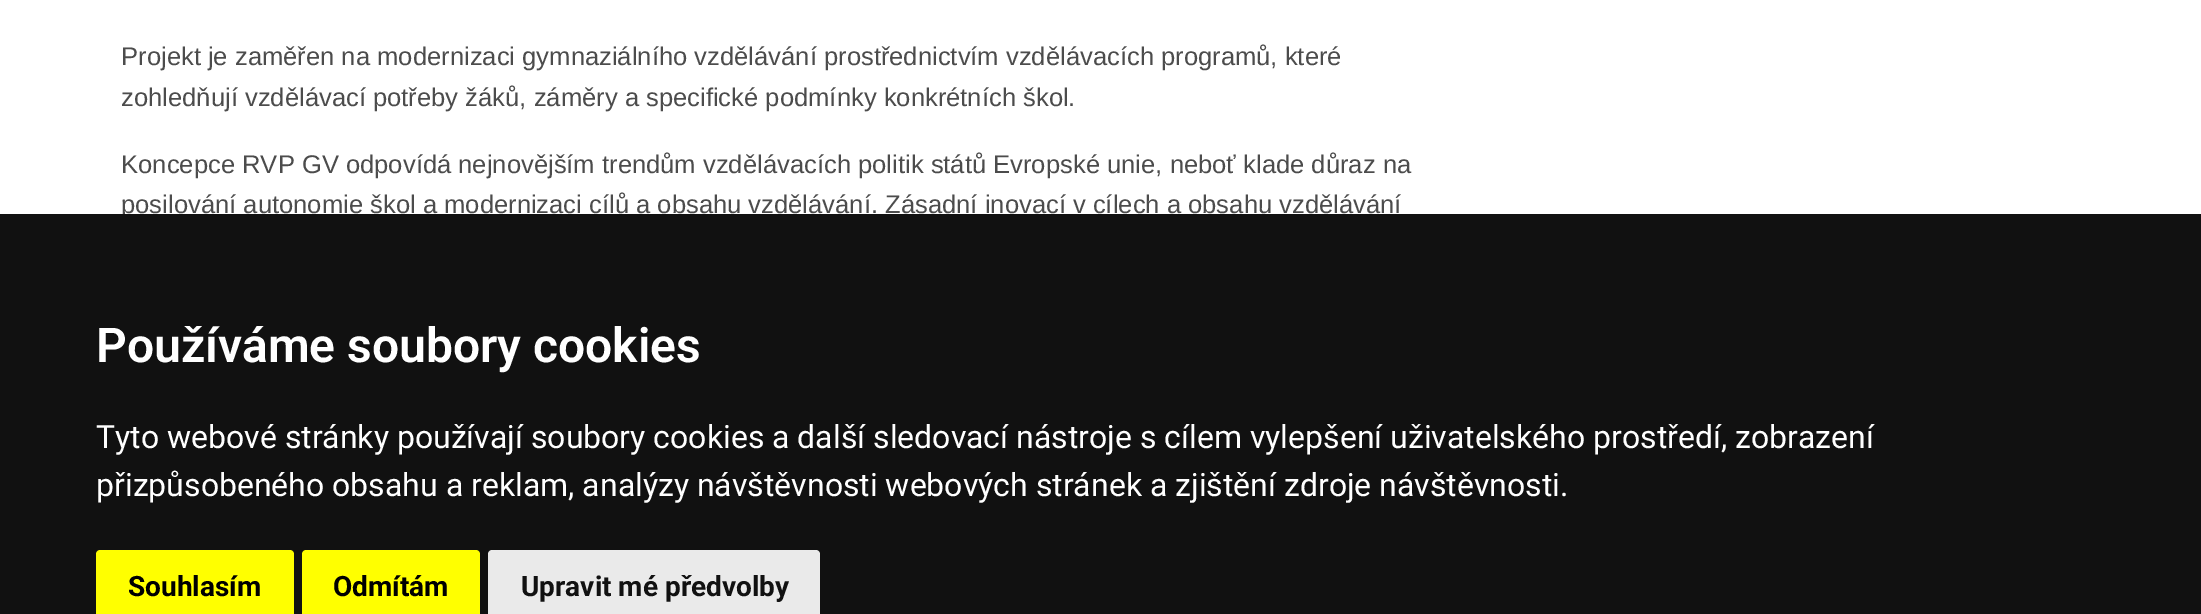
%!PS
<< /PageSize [2201 614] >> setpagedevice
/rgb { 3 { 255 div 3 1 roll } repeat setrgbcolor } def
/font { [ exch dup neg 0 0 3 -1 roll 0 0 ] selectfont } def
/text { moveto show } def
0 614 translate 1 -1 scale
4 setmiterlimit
255 255 255 rgb
0 0 2201 614 rectfill
/LiberationSans-Regular 25.6 font
76 76 76 rgb
(Projekt je zaměřen na modernizaci gymnaziálního vzdělávání prostřednictvím vzdělávacích programů, které) 121 65 text
(zohledňují vzdělávací potřeby žáků, záměry a specifické podmínky konkrétních škol.) 121 106 text
(Koncepce RVP GV odpovídá nejnovějším trendům vzdělávacích politik států Evropské unie, neboť klade důraz na) 121 173 text
(posilování autonomie škol a modernizaci cílů a obsahu vzdělávání. Zásadní inovací v cílech a obsahu vzdělávání) 121 213 text
17 17 17 rgb
0 214 2201 400 rectfill
/Roboto-SemiBold 48 font
255 255 255 rgb
(Používáme soubory cookies) 96 362 text
/Roboto-Regular 32 font
(Tyto webové stránky používají soubory cookies a další sledovací nástroje s cílem vylepšení uživatelského prostředí, zobrazení) 96 448 text
(přizpůsobeného obsahu a reklam, analýzy návštěvnosti webových stránek a zjištění zdroje návštěvnosti.) 96 496 text
255 255 0 rgb
100 550 moveto 190 0 rlineto 2 0 4 2 4 4 rcurveto 0 60 rlineto -198 0 rlineto 0 -60 rlineto 0 -2 2 -4 4 -4 rcurveto closepath fill
/Roboto-Bold 28 font
0 0 0 rgb
(Souhlasím) 128 596 text
255 255 0 rgb
306 550 moveto 170 0 rlineto 2 0 4 2 4 4 rcurveto 0 60 rlineto -178 0 rlineto 0 -60 rlineto 0 -2 2 -4 4 -4 rcurveto closepath fill
0 0 0 rgb
(Odmítám) 333 596 text
234 234 234 rgb
492 550 moveto 324 0 rlineto 2 0 4 2 4 4 rcurveto 0 60 rlineto -332 0 rlineto 0 -60 rlineto 0 -2 2 -4 4 -4 rcurveto closepath fill
17 17 17 rgb
(Upravit mé předvolby) 521 596 text
showpage
